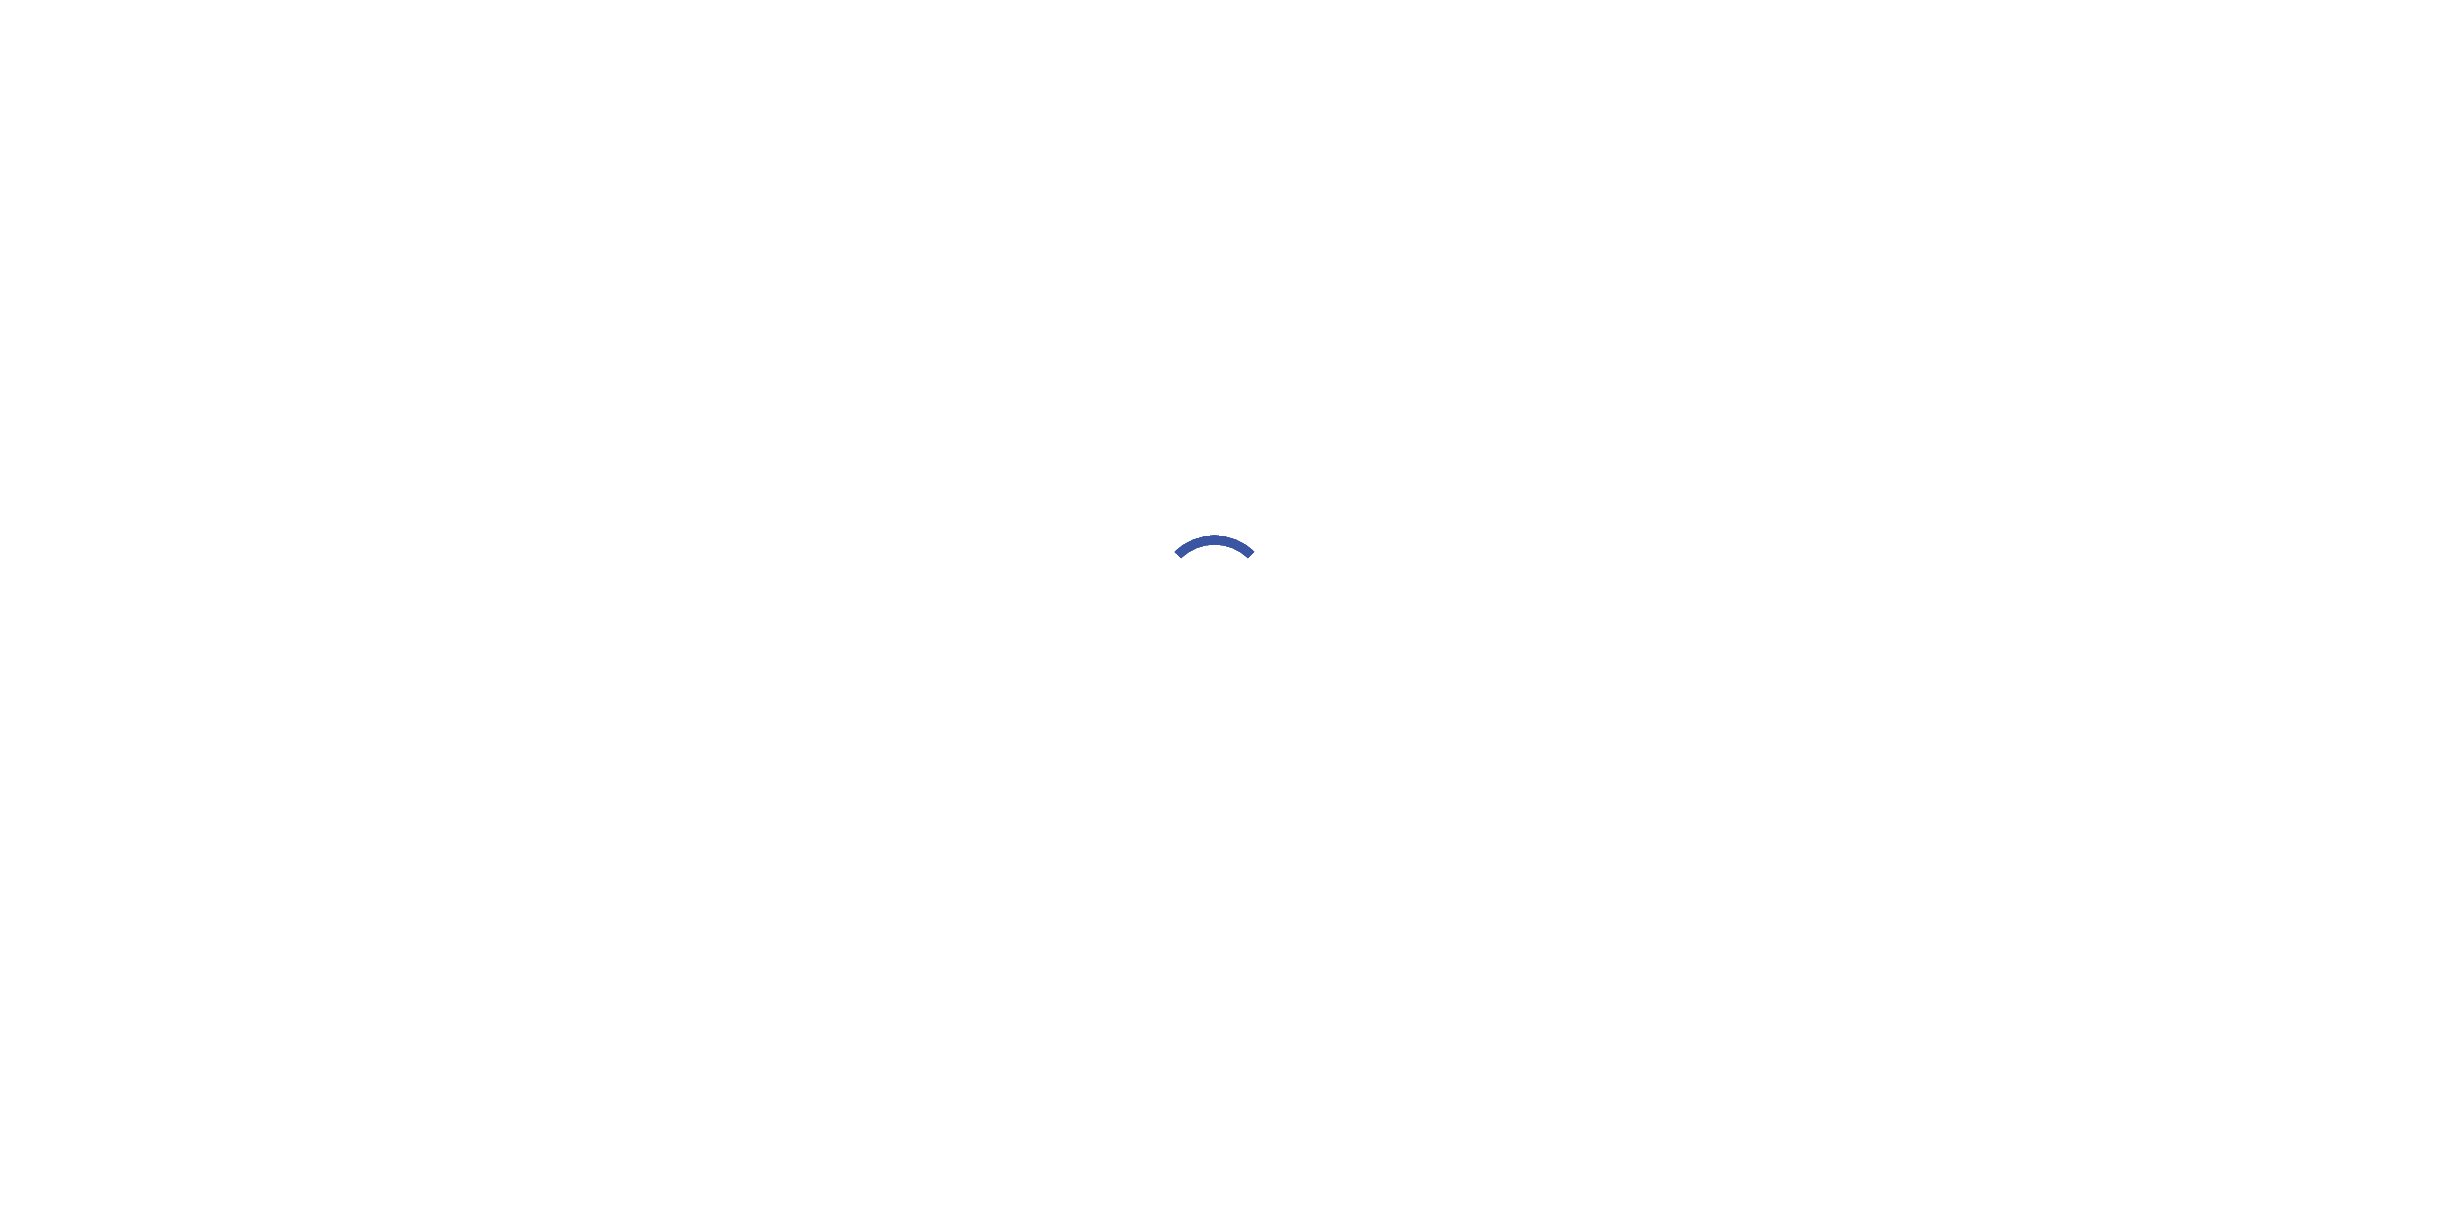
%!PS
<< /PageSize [2456 1208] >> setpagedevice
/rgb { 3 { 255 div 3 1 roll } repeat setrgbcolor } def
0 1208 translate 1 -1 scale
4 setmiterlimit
255 255 255 rgb
0 0 2456 1208 rectfill
58 85 162 rgb
8.8 setlinewidth
1178 555 moveto 20 -20 53 -20 73 0 rcurveto stroke
1178 555 moveto 20 -20 53 -20 73 0 rcurveto stroke
1178 555 moveto 20 -20 53 -20 73 0 rcurveto stroke
1178 555 moveto 20 -20 53 -20 73 0 rcurveto stroke
showpage
